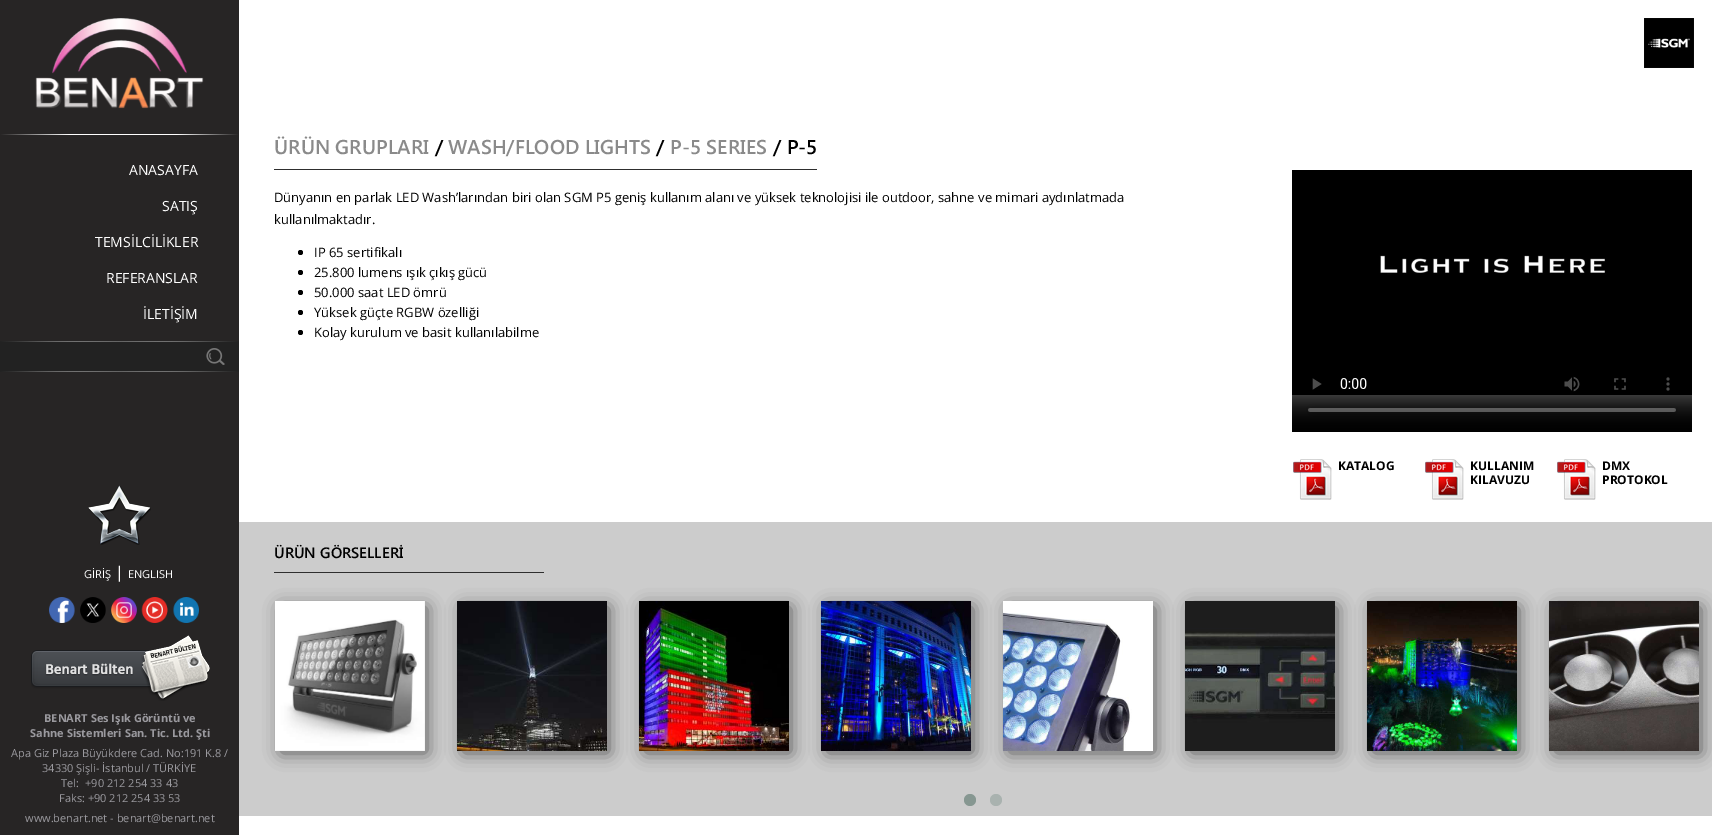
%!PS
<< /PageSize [1712 835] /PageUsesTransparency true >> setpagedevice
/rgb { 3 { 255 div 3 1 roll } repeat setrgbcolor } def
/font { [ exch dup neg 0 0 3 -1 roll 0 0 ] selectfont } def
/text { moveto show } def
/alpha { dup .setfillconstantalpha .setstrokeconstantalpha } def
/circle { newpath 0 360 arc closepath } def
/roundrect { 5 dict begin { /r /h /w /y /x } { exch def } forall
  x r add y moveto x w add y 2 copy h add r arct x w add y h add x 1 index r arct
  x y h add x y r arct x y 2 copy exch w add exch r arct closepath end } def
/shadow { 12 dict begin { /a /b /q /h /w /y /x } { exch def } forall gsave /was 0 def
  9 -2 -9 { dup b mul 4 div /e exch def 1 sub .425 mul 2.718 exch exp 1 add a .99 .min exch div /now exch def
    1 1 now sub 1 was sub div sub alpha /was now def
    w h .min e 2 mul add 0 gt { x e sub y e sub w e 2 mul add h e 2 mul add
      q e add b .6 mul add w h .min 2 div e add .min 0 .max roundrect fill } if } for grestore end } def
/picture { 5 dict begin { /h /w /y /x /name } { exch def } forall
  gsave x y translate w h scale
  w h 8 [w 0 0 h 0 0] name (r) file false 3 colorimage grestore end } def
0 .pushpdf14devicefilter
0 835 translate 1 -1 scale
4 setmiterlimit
255 255 255 rgb
0 0 1712 835 rectfill
39 37 37 rgb
0 0 239 835 rectfill
(img_01.rgb) 35 18 169 91 picture
gsave 0 134 moveto 239 0 rlineto 0 1 rlineto -239 0 rlineto closepath clip newpath
<< /ShadingType 2 /ColorSpace /DeviceRGB /Coords [0 135 239 135] /Extend [true true] /Function << /FunctionType 3 /Domain [0 1] /Functions [<< /FunctionType 2 /Domain [0 1] /C0 [0.153 0.145 0.145] /C1 [1 1 1] /N 1 >> << /FunctionType 2 /Domain [0 1] /C0 [1 1 1] /C1 [1 1 1] /N 1 >> << /FunctionType 2 /Domain [0 1] /C0 [1 1 1] /C1 [0.153 0.145 0.145] /N 1 >>] /Bounds [0.29 0.74] /Encode [0 1 0 1 0 1] >> >> shfill grestore
(img_02.rgb) 0 341 239 31 picture
(img_03.rgb) 88 485 63 60 picture
(img_04.rgb) 49 597 150 26 picture
(img_05.rgb) 31 635 179 66 picture
(img_06.rgb) 1644 18 50 50 picture
46 46 46 rgb
274 169 543 1 rectfill
0 0 0 rgb
300.5 252.5 2.5 circle fill
300.5 272.5 2.5 circle fill
300.5 292.5 2.5 circle fill
300.5 312.5 2.5 circle fill
300.5 332.5 2.5 circle fill
(img_07.rgb) 1292 170 400 262 picture
(img_08.rgb) 1293 459 39 41 picture
(img_08.rgb) 1425 459 39 41 picture
(img_08.rgb) 1557 459 39 41 picture
204 204 204 rgb
239 522 1473 294 rectfill
46 46 46 rgb
274 572 270 1 rectfill
0 0 0 rgb
281 607 146 146 0 8.5 0.55 shadow
(img_09.rgb) 275 601 150 150 picture
463 607 146 146 0 8.5 0.55 shadow
(img_10.rgb) 457 601 150 150 picture
645 607 146 146 0 8.5 0.55 shadow
(img_11.rgb) 639 601 150 150 picture
827 607 146 146 0 8.5 0.55 shadow
(img_12.rgb) 821 601 150 150 picture
1009 607 146 146 0 8.5 0.55 shadow
(img_13.rgb) 1003 601 150 150 picture
1191 607 146 146 0 8.5 0.55 shadow
(img_14.rgb) 1185 601 150 150 picture
1373 607 146 146 0 8.5 0.55 shadow
(img_15.rgb) 1367 601 150 150 picture
1555 607 146 146 0 8.5 0.55 shadow
(img_16.rgb) 1549 601 150 150 picture
134 151 145 rgb
970 800 6 circle fill
169 178 175 rgb
996 800 6 circle fill
/OpenSans-Regular 14 font
255 255 255 rgb
(ANASAYFA) 129 175 text
(SATIŞ) 162 211 text
(TEMSİLCİLİKLER) 95 247 text
(REFERANSLAR) 106 283 text
(İLETİŞİM) 143 319 text
/OpenSans-Regular 11 font
(GİRİŞ) 84 578 text
/OpenSans-Regular 16 font
(|) 115 578 text
/OpenSans-Regular 11 font
(ENGLISH) 128 578 text
/OpenSans-Bold 11 font
154 153 158 rgb
(BENART Ses Işık Görüntü ve) 44 722 text
(Sahne Sistemleri San. Tic. Ltd. Şti) 30 737 text
/OpenSans-Regular 11 font
(Apa Giz Plaza Büyükdere Cad. No:191 K.8 /) 11 757 text
(34330 Şişli- İstanbul / TÜRKİYE) 42 772 text
(Tel:) 61 787 text
(+90 212 254 33 43) 85 787 text
(Faks: +90 212 254 33 53) 59 802 text
(www.benart.net - benart@benart.net) 25 822 text
/SegoeUI-SemiBold 20 font
138 138 138 rgb
(ÜRÜN GRUPLARI) 274 154 text
0 0 0 rgb
(/) 435 154 text
138 138 138 rgb
(WASH/FLOOD LIGHTS) 448 154 text
0 0 0 rgb
(/) 656 154 text
138 138 138 rgb
(P-5 SERIES) 670 154 text
0 0 0 rgb
(/ P-5) 773 154 text
/OpenSans-Regular 13 font
(Dünyanın en parlak LED Wash’larından biri olan SGM P5 geniş kullanım alanı ve yüksek teknolojisi ile outdoor, sahne ve mimari aydınlatmada) 274 202 text
(kullanılmaktadır.) 274 224 text
(IP 65 sertifikalı) 314 257 text
(25.800 lumens ışık çıkış gücü) 314 277 text
(50.000 saat LED ömrü) 314 297 text
(Yüksek güçte RGBW özelliği) 314 317 text
(Kolay kurulum ve basit kullanılabilme) 314 337 text
/OpenSans-Bold 12 font
(KATALOG) 1338 470 text
(KULLANIM) 1470 470 text
(KILAVUZU) 1470 484 text
(DMX) 1602 470 text
(PROTOKOL) 1602 484 text
/SegoeUI-SemiBold 15 font
(ÜRÜN GÖRSELLERİ) 274 558 text
.poppdf14devicefilter showpage
